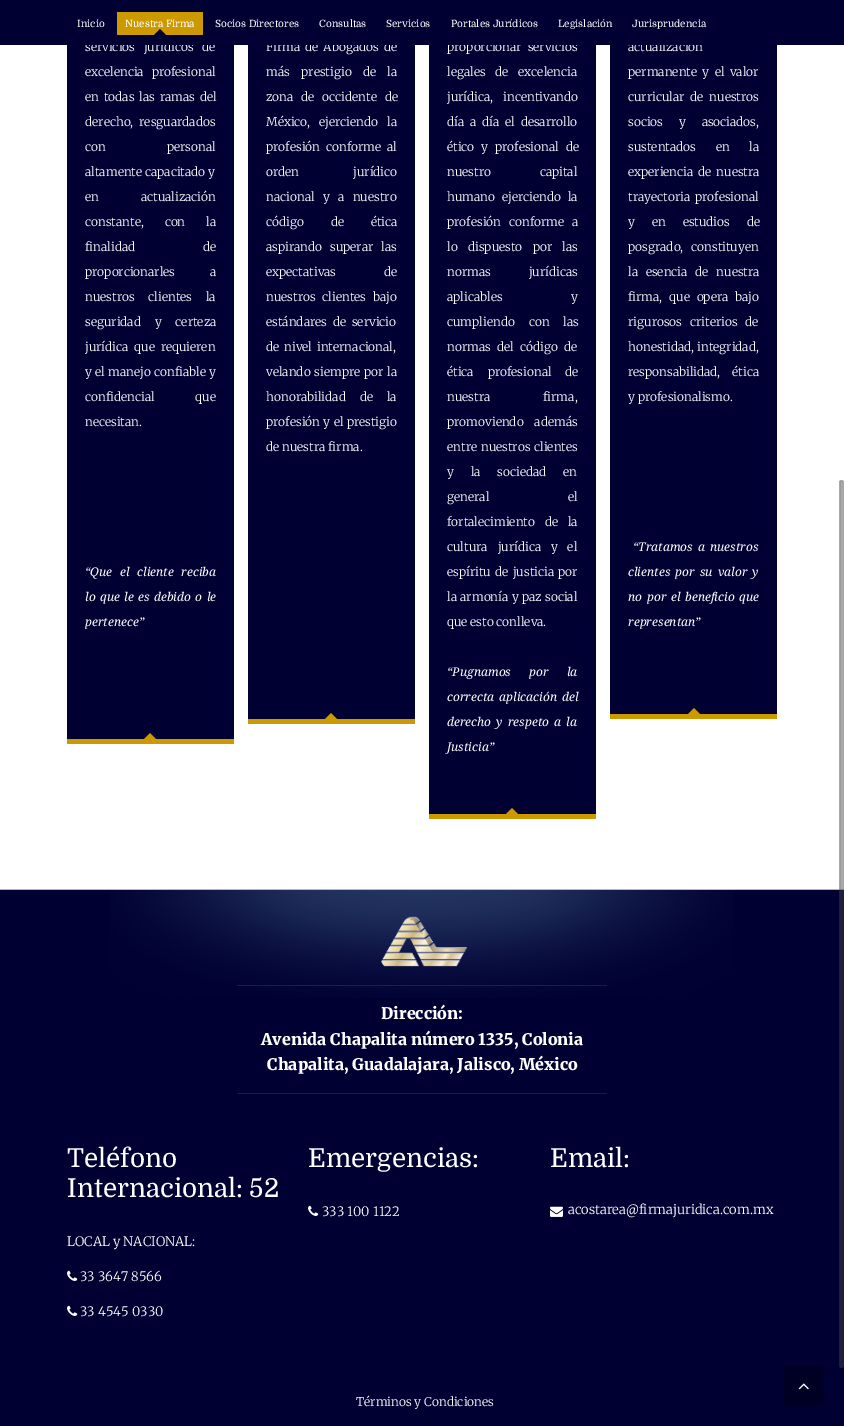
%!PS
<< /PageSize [844 1426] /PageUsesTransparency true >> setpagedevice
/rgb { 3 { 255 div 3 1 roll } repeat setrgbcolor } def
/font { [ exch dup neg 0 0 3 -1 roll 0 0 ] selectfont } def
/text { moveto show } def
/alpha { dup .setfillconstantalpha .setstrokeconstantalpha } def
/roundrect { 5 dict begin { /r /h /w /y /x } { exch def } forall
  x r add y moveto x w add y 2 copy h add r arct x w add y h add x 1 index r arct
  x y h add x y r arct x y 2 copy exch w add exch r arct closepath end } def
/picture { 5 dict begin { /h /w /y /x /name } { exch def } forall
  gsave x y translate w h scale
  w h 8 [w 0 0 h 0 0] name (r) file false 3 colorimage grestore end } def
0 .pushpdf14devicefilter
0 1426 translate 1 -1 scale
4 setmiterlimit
255 255 255 rgb
0 0 844 1426 rectfill
0 0 51 rgb
67 45 167 694 rectfill
204 153 0 rgb
67 739 167 5 rectfill
156 739 moveto -12 0 rlineto 6 -6 rlineto closepath fill
0 0 51 rgb
248 45 167 674 rectfill
204 153 0 rgb
248 719 167 5 rectfill
337 719 moveto -12 0 rlineto 6 -6 rlineto closepath fill
0 0 51 rgb
429 45 167 769 rectfill
204 153 0 rgb
429 814 167 5 rectfill
518 814 moveto -12 0 rlineto 6 -6 rlineto closepath fill
0 0 51 rgb
610 45 167 669 rectfill
204 153 0 rgb
610 714 167 5 rectfill
700 714 moveto -12 0 rlineto 6 -6 rlineto closepath fill
0 0 51 rgb
0 890 844 536 rectfill
(img_01.rgb) 110 890 624 108 picture
218 192 55 rgb
0 889 844 1 rectfill
(img_02.rgb) 381 916 87 51 picture
0.1 alpha
255 255 255 rgb
237 985 370 1 rectfill
1 alpha
26 26 71 rgb
237 1093 370 1 rectfill
(img_03.rgb) 67 1270 11 11 picture
(img_03.rgb) 67 1305 11 11 picture
(img_03.rgb) 308 1205 11 11 picture
(img_04.rgb) 550 1206 13 11 picture
0 0 36 rgb
784 1366 40 40 rectfill
(img_05.rgb) 798 1383 11 7 picture
0.46 alpha
66 66 66 rgb
840 481 3 886 1.5 roundrect fill
839.5 480.5 4 887 2 roundrect stroke
/Merriweather-Light 12 font
1 alpha
255 255 255 rgb
85 51 moveto 6 0 32 (servicios jurídicos de) widthshow
85 76 moveto 5 0 32 (excelencia profesional) widthshow
85 101 moveto 2 0 32 (en todas las ramas del) widthshow
85 126 moveto 3 0 32 (derecho, resguardados) widthshow
85 151 moveto 58 0 32 (con personal) widthshow
(altamente capacitado y) 85 176 text
85 201 moveto 39 0 32 (en actualización) widthshow
85 226 moveto 18 0 32 (constante, con la) widthshow
85 251 moveto 65 0 32 (finalidad de) widthshow
85 276 moveto 32 0 32 (proporcionarles a) widthshow
85 301 moveto 11 0 32 (nuestros clientes la) widthshow
85 326 moveto 11 0 32 (seguridad y certeza) widthshow
85 351 moveto 3 0 32 (jurídica que requieren) widthshow
85 376 moveto 0.5 0 32 (y el manejo confiable y) widthshow
85 401 moveto 38 0 32 (confidencial que) widthshow
(necesitan.) 85 426 text
/NotoSerif-Italic 12 font
85 576 moveto 4.5 0 32 (“Que el cliente reciba) widthshow
85 601 moveto 1.25 0 32 (lo que le es debido o le) widthshow
(pertenece”) 85 626 text
/Merriweather-Light 12 font
266 51 moveto 2 0 32 (Firma de Abogados de) widthshow
266 76 moveto 8.5 0 32 (más prestigio de la) widthshow
266 101 moveto 5 0 32 (zona de occidente de) widthshow
266 126 moveto 6 0 32 (México, ejerciendo la) widthshow
266 151 moveto 3 0 32 (profesión conforme al) widthshow
266 176 moveto 51 0 32 (orden jurídico) widthshow
266 201 moveto 5.5 0 32 (nacional y a nuestro) widthshow
266 226 moveto 24 0 32 (código de ética) widthshow
266 251 moveto 5 0 32 (aspirando superar las) widthshow
266 276 moveto 45 0 32 (expectativas de) widthshow
266 301 moveto 4 0 32 (nuestros clientes bajo) widthshow
266 326 moveto 3 0 32 (estándares de servicio) widthshow
266 351 moveto 2 0 32 (de nivel internacional,) widthshow
266 376 moveto 1 0 32 (velando siempre por la) widthshow
266 401 moveto 11 0 32 (honorabilidad de la) widthshow
266 426 moveto 0.5 0 32 (profesión y el prestigio) widthshow
(de nuestra firma.) 266 451 text
447 51 moveto 3 0 32 (proporcionar servicios) widthshow
447 76 moveto 7 0 32 (legales de excelencia) widthshow
447 101 moveto 7 0 32 (jurídica, incentivando) widthshow
447 126 moveto 3 0 32 (día a día el desarrollo) widthshow
447 151 moveto 4 0 32 (ético y profesional de) widthshow
447 176 moveto 46 0 32 (nuestro capital) widthshow
447 201 moveto 4 0 32 (humano ejerciendo la) widthshow
447 226 moveto 5 0 32 (profesión conforme a) widthshow
447 251 moveto 7.5 0 32 (lo dispuesto por las) widthshow
447 276 moveto 35 0 32 (normas jurídicas) widthshow
447 301 moveto 66 0 32 (aplicables y) widthshow
447 326 moveto 11 0 32 (cumpliendo con las) widthshow
447 351 moveto 3.5 0 32 (normas del código de) widthshow
447 376 moveto 11 0 32 (ética profesional de) widthshow
447 401 moveto 50 0 32 (nuestra firma,) widthshow
447 426 moveto 8 0 32 (promoviendo además) widthshow
447 451 moveto 1 0 32 (entre nuestros clientes) widthshow
447 476 moveto 14 0 32 (y la sociedad en) widthshow
447 501 moveto 76 0 32 (general el) widthshow
447 526 moveto 7 0 32 (fortalecimiento de la) widthshow
447 551 moveto 7 0 32 (cultura jurídica y el) widthshow
447 576 moveto 1.5 0 32 (espíritu de justicia por) widthshow
447 601 moveto 0.5 0 32 (la armonía y paz social) widthshow
(que esto conlleva.) 447 626 text
/NotoSerif-Italic 12 font
447 676 moveto 15 0 32 (“Pugnamos por la) widthshow
447 701 moveto 2 0 32 (correcta aplicación del) widthshow
447 726 moveto 2 0 32 (derecho y respeto a la) widthshow
(Justicia”) 447 751 text
/Merriweather-Light 12 font
(actualización) 628 51 text
0 0 51 rgb
0 0 844 45 rectfill
/Domine-Regular 10 font
255 255 255 rgb
(Jurisprudencia) 632 27 text
(Legislación) 558 27 text
(Portales Jurídicos) 451 27 text
(Servicios) 386 27 text
(Consultas) 319 27 text
(Socios Directores) 215 27 text
204 153 0 rgb
117 12 86 23 rectfill
0 0 51 rgb
166 35 moveto -12 0 rlineto 6 -6 rlineto closepath fill
255 255 255 rgb
(Nuestra Firma) 125 27 text
(Inicio) 77 27 text
/Merriweather-Light 12 font
628 76 moveto 2.5 0 32 (permanente y el valor) widthshow
628 101 moveto 3 0 32 (curricular de nuestros) widthshow
628 126 moveto 13 0 32 (socios y asociados,) widthshow
628 151 moveto 17 0 32 (sustentados en la) widthshow
628 176 moveto 2 0 32 (experiencia de nuestra) widthshow
628 201 moveto 2 0 32 (trayectoria profesional) widthshow
628 226 moveto 14 0 32 (y en estudios de) widthshow
628 251 moveto 5 0 32 (posgrado, constituyen) widthshow
628 276 moveto 5 0 32 (la esencia de nuestra) widthshow
628 301 moveto 4 0 32 (firma, que opera bajo) widthshow
628 326 moveto 5 0 32 (rigurosos criterios de) widthshow
(honestidad, integridad,) 628 351 text
628 376 moveto 9 0 32 (responsabilidad, ética) widthshow
(y profesionalismo.) 628 401 text
/NotoSerif-Italic 12 font
633 551 moveto 2 0 32 (“Tratamos a nuestros) widthshow
628 576 moveto 2 0 32 (clientes por su valor y) widthshow
628 601 moveto 1.5 0 32 (no por el beneficio que) widthshow
(representan”) 628 626 text
/Merriweather-Black 16 font
(Dirección:) 381 1019 text
(Avenida Chapalita número 1335, Colonia) 261 1045 text
(Chapalita, Guadalajara, Jalisco, México) 267 1070 text
/Domine-Regular 26 font
(Teléfono) 67 1167 text
(Internacional: 52) 67 1197 text
/Merriweather-Light 13 font
(LOCAL y NACIONAL:) 67 1246 text
(33 3647 8566) 80 1281 text
(33 4545 0330) 80 1316 text
/Domine-Regular 26 font
(Emergencias:) 308 1167 text
/Merriweather-Light 13 font
(333 100 1122) 322 1216 text
/Domine-Regular 26 font
(Email:) 550 1167 text
/Merriweather-Light 13 font
(acostarea@firmajuridica.com.mx) 568 1214 text
/Merriweather-Light 12 font
(Términos y Condiciones) 356 1406 text
.poppdf14devicefilter showpage
